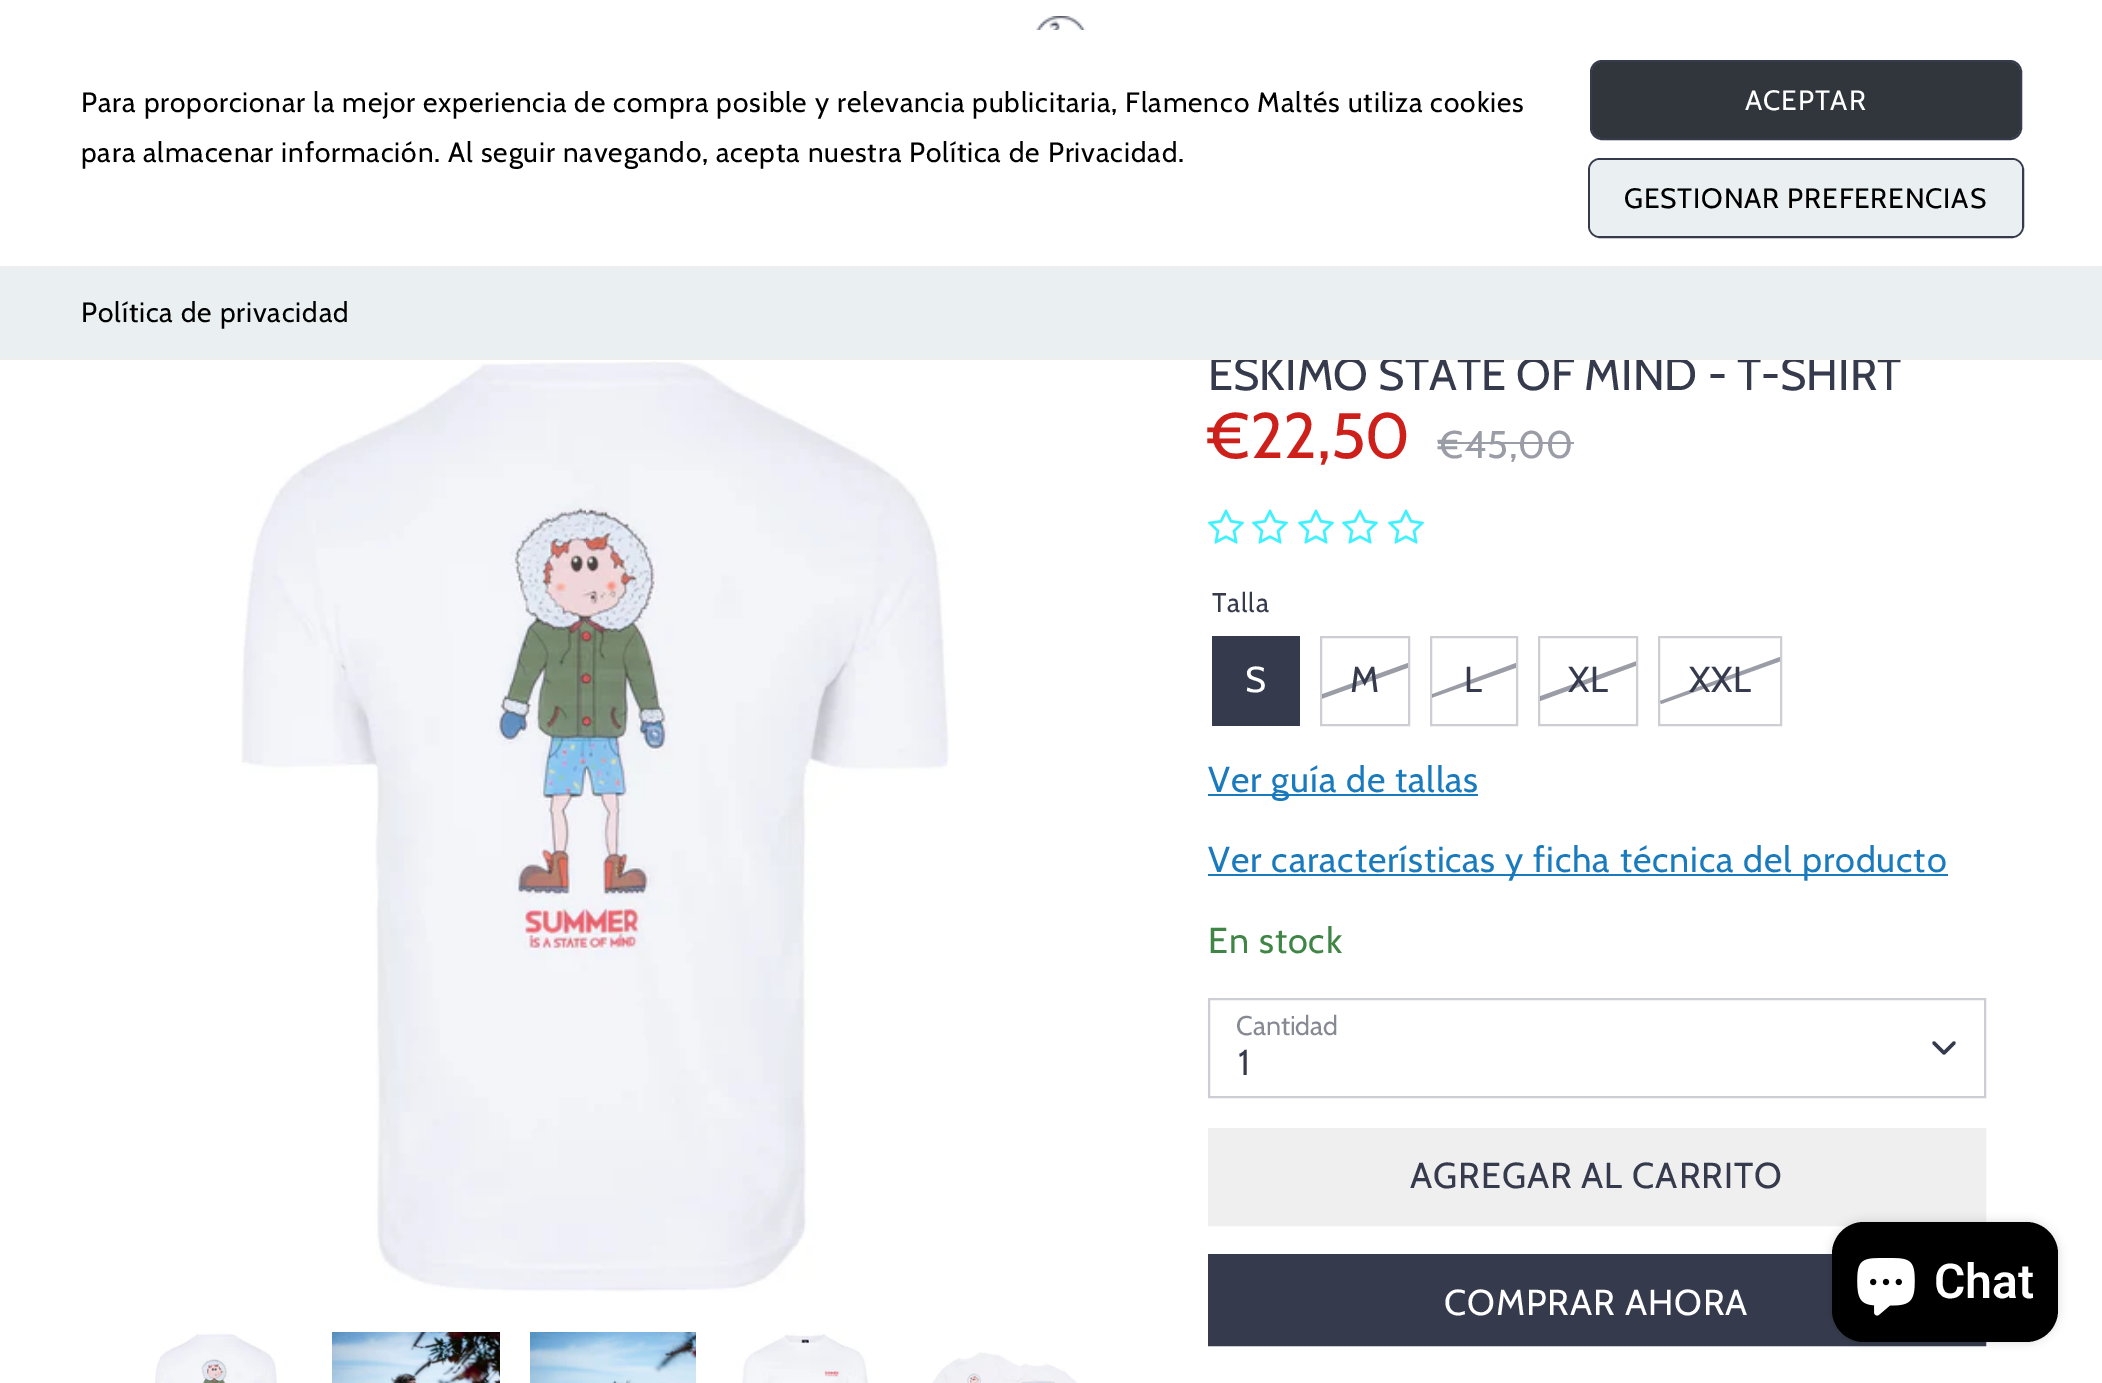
%!PS
<< /PageSize [2102 1383] /PageUsesTransparency true >> setpagedevice
/rgb { 3 { 255 div 3 1 roll } repeat setrgbcolor } def
/font { [ exch dup neg 0 0 3 -1 roll 0 0 ] selectfont } def
/text { moveto show } def
/alpha { dup .setfillconstantalpha .setstrokeconstantalpha } def
/roundrect { 5 dict begin { /r /h /w /y /x } { exch def } forall
  x r add y moveto x w add y 2 copy h add r arct x w add y h add x 1 index r arct
  x y h add x y r arct x y 2 copy exch w add exch r arct closepath end } def
/shadow { 12 dict begin { /a /b /q /h /w /y /x } { exch def } forall gsave /was 0 def
  9 -2 -9 { dup b mul 4 div /e exch def 1 sub .425 mul 2.718 exch exp 1 add a .99 .min exch div /now exch def
    1 1 now sub 1 was sub div sub alpha /was now def
    w h .min e 2 mul add 0 gt { x e sub y e sub w e 2 mul add h e 2 mul add
      q e add b .6 mul add w h .min 2 div e add .min 0 .max roundrect fill } if } for grestore end } def
/picture { 5 dict begin { /h /w /y /x /name } { exch def } forall
  gsave x y translate w h scale
  w h 8 [w 0 0 h 0 0] name (r) file false 3 colorimage grestore end } def
0 .pushpdf14devicefilter
0 1383 translate 1 -1 scale
4 setmiterlimit
255 255 255 rgb
0 0 2102 1383 rectfill
(img_01.rgb) 1036 16 50 14 picture
53 58 77 rgb
2 setlinewidth
1591 61 430 78 11 roundrect stroke
48 54 60 rgb
1592 62 428 76 10 roundrect fill
53 58 77 rgb
1589 159 434 78 11 roundrect stroke
234 239 242 rgb
1590 160 432 76 10 roundrect fill
238 238 238 rgb
0 266 2102 2 rectfill
(img_02.rgb) 241 361 708 931 picture
(img_03.rgb) 155 1332 122 51 picture
(img_04.rgb) 332 1332 168 51 picture
(img_05.rgb) 530 1332 166 51 picture
(img_06.rgb) 742 1332 128 51 picture
(img_07.rgb) 932 1352 146 31 picture
154 157 166 rgb
1438 442 136 2 rectfill
(img_08.rgb) 1208 509 36 35 picture
(img_08.rgb) 1252 509 36 35 picture
(img_08.rgb) 1298 509 36 35 picture
(img_08.rgb) 1342 509 36 35 picture
(img_08.rgb) 1388 509 36 35 picture
53 58 77 rgb
1212 636 88 90 rectfill
205 206 211 rgb
1321 637 88 88 rectstroke
1431 637 86 88 rectstroke
1539 637 98 88 rectstroke
1659 637 122 88 rectstroke
25 123 189 rgb
1208 794 270 2 rectfill
1208 874 740 2 rectfill
205 206 211 rgb
1209 999 776 98 rectstroke
53 58 77 rgb
3.3 setlinewidth
1 setlinecap
1 setlinejoin
1934 1043 moveto 10 10 rlineto 10 -10 rlineto stroke
239 239 239 rgb
2 setlinewidth
0 setlinecap
0 setlinejoin
1209 1129 776 96 rectstroke
1210 1130 774 94 rectfill
53 58 77 rgb
1209 1255 776 90 rectstroke
1210 1256 774 88 rectfill
0 0 0 rgb
1832 1222 226 120 32 5 0.15 shadow
1832 1222 226 120 32 roundrect fill
(img_09.rgb) 1857 1258 58 58 picture
/Cabin-Regular 28 font
81 112 moveto 0.9 0 (Para proporcionar la mejor experiencia de compra posible y relevancia publicitaria, Flamenco Maltés utiliza cookies) ashow
81 162 moveto 0.9 0 (para almacenar información. Al seguir navegando, acepta nuestra Política de Privacidad.) ashow
255 255 255 rgb
1745 110 moveto 0.9 0 (ACEPTAR) ashow
0 0 0 rgb
1624 208 moveto 0.9 0 (GESTIONAR PREFERENCIAS) ashow
/Cabin-Regular 45.2 font
53 58 77 rgb
(ESKIMO STATE OF MIND - T-SHIRT) 1208 390 text
234 239 242 rgb
0 268 2102 90 rectfill
/Cabin-Regular 28 font
0 0 0 rgb
81 322 moveto 0.9 0 (Política de privacidad) ashow
238 238 238 rgb
0 358 2102 2 rectfill
/Cabin-Regular 64 font
205 32 26 rgb
(€22,50) 1208 458 text
/Cabin-Regular 38.5 font
154 157 166 rgb
1438 458 moveto 0.9 0 (€45,00) ashow
/Cabin-Regular 27 font
53 58 77 rgb
1212 612 moveto 0.9 0 (Talla) ashow
/Cabin-Regular 36 font
255 255 255 rgb
1245 692 moveto 0.9 0 (S) ashow
53 58 77 rgb
1350 692 moveto 0.9 0 (M) ashow
gsave
1322 638 86 86 rectclip
0.5 alpha
1320 695 moveto 88 -32 rlineto 2 4 rlineto -89 32 rlineto closepath fill
grestore
1464 692 moveto 0.9 0 (L) ashow
gsave
1432 638 84 86 rectclip
0.5 alpha
1430 695 moveto 86 -32 rlineto 2 4 rlineto -87 31 rlineto closepath fill
grestore
1568 692 moveto 0.9 0 (XL) ashow
gsave
1540 638 96 86 rectclip
0.5 alpha
1538 697 moveto 99 -36 rlineto 1 4 rlineto -98 36 rlineto closepath fill
grestore
1689 692 moveto 0.9 0 (XXL) ashow
gsave
1660 638 120 86 rectclip
0.5 alpha
1660 701 moveto 120 -44 rlineto 1 4 rlineto -120 43 rlineto closepath fill
grestore
25 123 189 rgb
1208 792 moveto 0.9 0 (Ver guía de tallas) ashow
1208 872 moveto 0.9 0 (Ver características y ficha técnica del producto) ashow
63 133 69 rgb
1208 953 moveto 0.9 0 (En stock) ashow
/Cabin-Regular 27 font
134 137 148 rgb
(Cantidad) 1236 1035 text
/Cabin-Regular 36 font
53 58 77 rgb
1238 1075 moveto 0.9 0 (1) ashow
1410 1188 moveto 0.9 0 (AGREGAR AL CARRITO) ashow
255 255 255 rgb
1444 1315 moveto 0.9 0 (COMPRAR AHORA) ashow
/Roboto-SemiBold 48 font
(Chat) 1934 1298 text
.poppdf14devicefilter showpage
